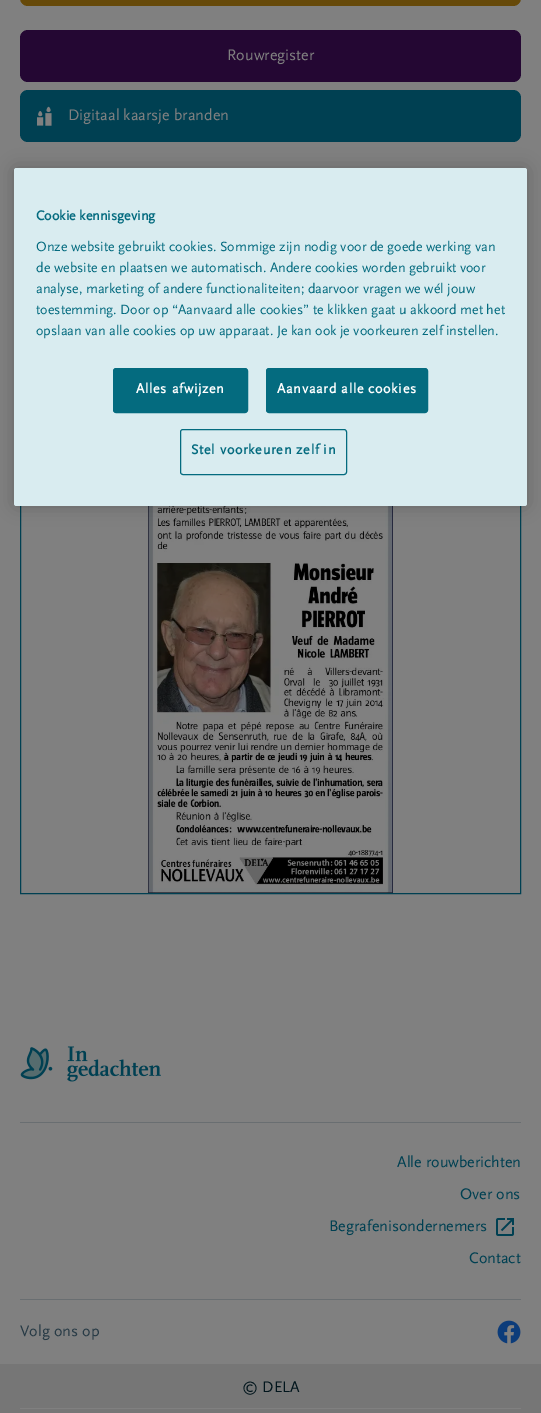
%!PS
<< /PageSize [541 1413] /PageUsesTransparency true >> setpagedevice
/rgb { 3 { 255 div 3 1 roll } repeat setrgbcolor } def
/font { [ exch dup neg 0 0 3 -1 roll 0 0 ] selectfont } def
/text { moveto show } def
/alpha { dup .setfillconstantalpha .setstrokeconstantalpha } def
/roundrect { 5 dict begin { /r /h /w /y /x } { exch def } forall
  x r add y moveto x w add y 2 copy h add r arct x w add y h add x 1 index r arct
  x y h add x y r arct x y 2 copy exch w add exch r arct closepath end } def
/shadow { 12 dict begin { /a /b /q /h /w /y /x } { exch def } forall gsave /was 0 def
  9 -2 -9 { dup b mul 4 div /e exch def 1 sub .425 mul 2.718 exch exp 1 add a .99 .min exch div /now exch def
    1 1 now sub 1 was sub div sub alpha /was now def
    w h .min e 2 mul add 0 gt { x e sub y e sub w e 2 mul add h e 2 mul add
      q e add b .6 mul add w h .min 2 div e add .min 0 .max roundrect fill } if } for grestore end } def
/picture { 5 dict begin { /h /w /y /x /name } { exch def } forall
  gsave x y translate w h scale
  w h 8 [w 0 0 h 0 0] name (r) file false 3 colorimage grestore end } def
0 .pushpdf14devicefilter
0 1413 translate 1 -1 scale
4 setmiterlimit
128 128 128 rgb
0 0 541 1413 rectfill
102 73 9 rgb
20 -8 501 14 8 roundrect fill
36 7 51 rgb
20 30 501 52 8 roundrect fill
0 64 82 rgb
20 90 501 52 8 roundrect fill
(img_01.rgb) 37 106 15 20 picture
20.5 294.5 500 599 rectstroke
(img_02.rgb) 148 506 245 387 picture
105 110 113 rgb
20 1122 501 1 rectfill
(img_03.rgb) 20 1046 141 36 picture
(img_04.rgb) 496 1218 18 18 picture
20 1299 501 1 rectfill
(img_05.rgb) 497 1320 24 24 picture
118 118 118 rgb
0 1364 541 49 rectfill
128 128 128 rgb
20 1408 501 1 rectfill
0 0 0 rgb
14 168 513 338 2.5 9 0.2 shadow
217 236 240 rgb
14 168 513 338 2.5 roundrect fill
4 107 127 rgb
113.5 368.5 134 44 2.5 roundrect gsave fill grestore
stroke
266.5 368.5 161 44 2.5 roundrect gsave fill grestore
stroke
180.5 429.5 166 45 2.5 roundrect stroke
/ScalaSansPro-Regular 16 font
128 128 128 rgb
(Rouwregister) 227 60 text
(Digitaal kaarsje branden) 68 120 text
0 64 82 rgb
(Alle rouwberichten) 397 1167 text
(Over ons) 460 1199 text
(Begrafenisondernemers) 329 1231 text
(Contact) 469 1263 text
39 58 69 rgb
(Volg ons op) 20 1336 text
1 21 28 rgb
(© DELA) 242 1392 text
/ScalaSansPro-Bold 14 font
4 107 127 rgb
(Cookie kennisgeving) 36 220 text
/ScalaSansPro-Regular 14 font
(Onze website gebruikt cookies. Sommige zijn nodig voor de goede werking van) 36 251 text
(de website en plaatsen we automatisch. Andere cookies worden gebruikt voor) 36 272 text
(analyse, marketing of andere functionaliteiten; daarvoor vragen we wél jouw) 36 293 text
(toestemming. Door op “Aanvaard alle cookies” te klikken gaat u akkoord met het) 36 314 text
(opslaan van alle cookies op uw apparaat. Je kan ook je voorkeuren zelf instellen.) 36 335 text
/ScalaSansPro-Bold 14 font
255 255 255 rgb
136 393 moveto 0.7 0 (Alles afwijzen) ashow
277 393 moveto 0.7 0 (Aanvaard alle cookies) ashow
4 107 127 rgb
191 454 moveto 0.7 0 (Stel voorkeuren zelf in) ashow
.poppdf14devicefilter showpage
